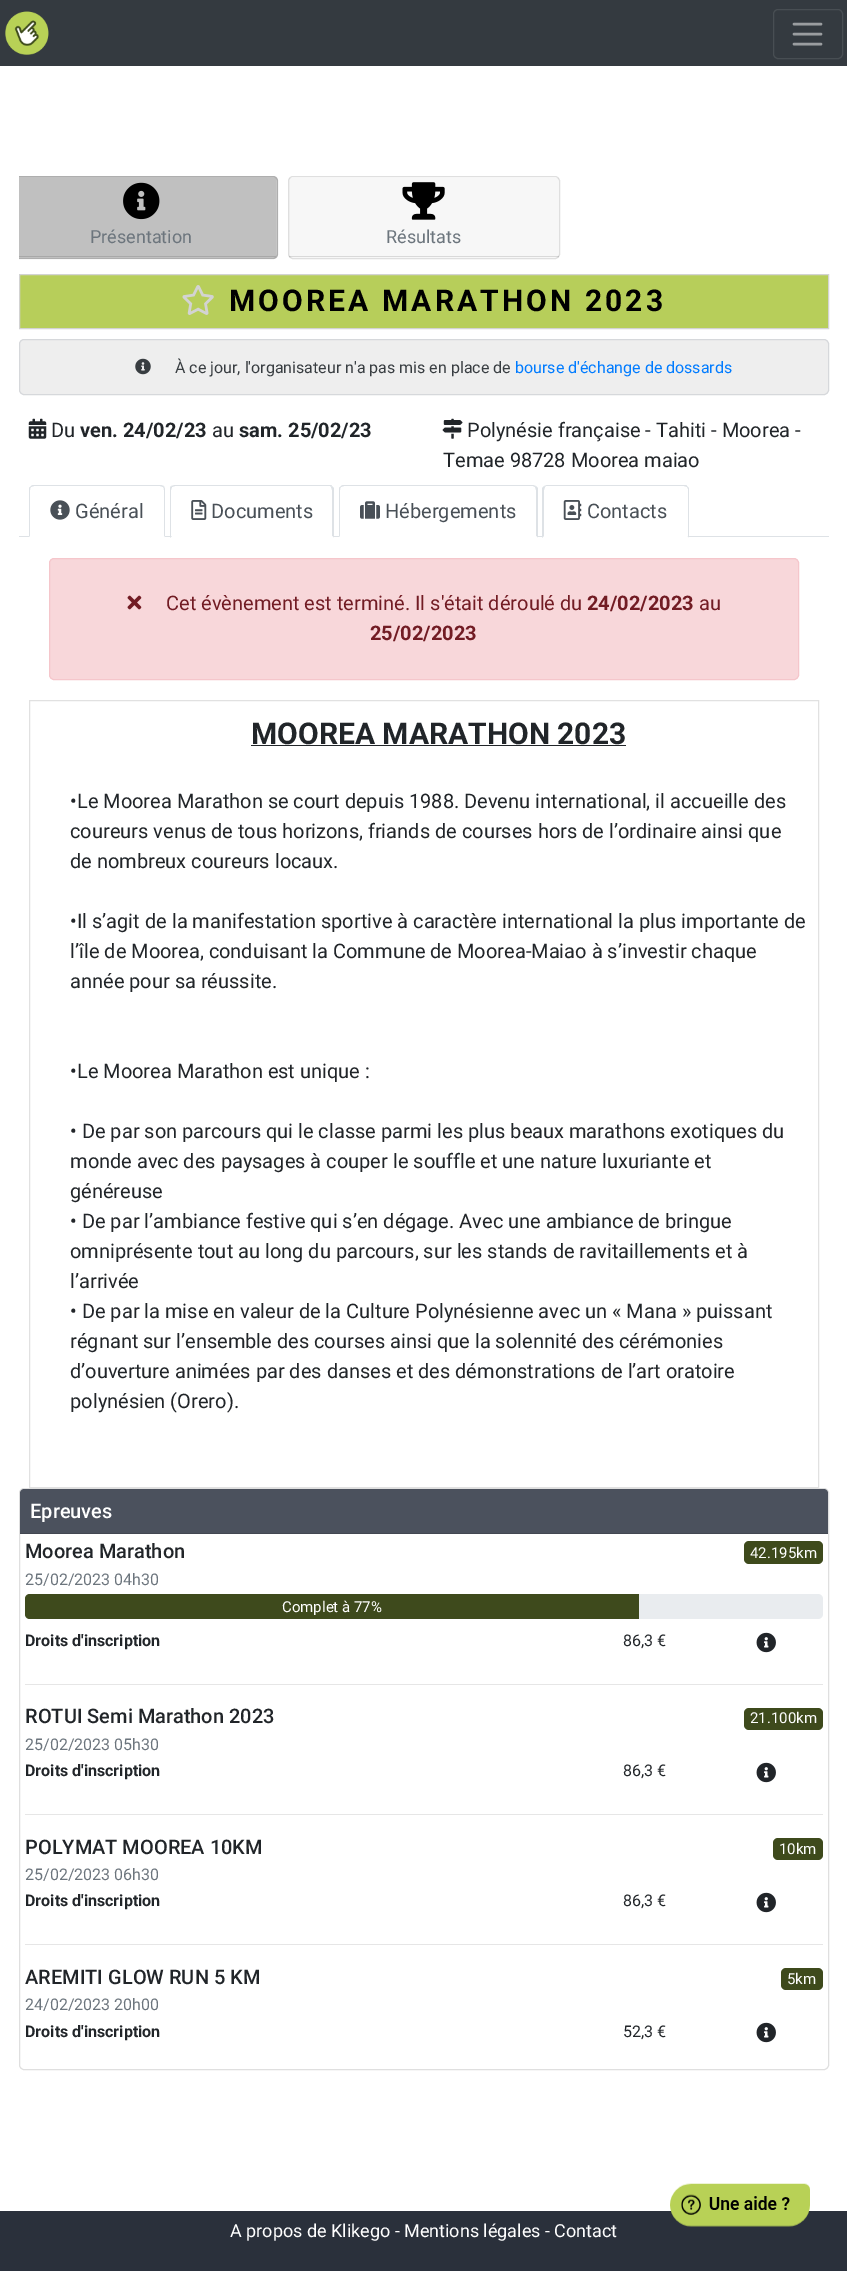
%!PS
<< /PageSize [847 2271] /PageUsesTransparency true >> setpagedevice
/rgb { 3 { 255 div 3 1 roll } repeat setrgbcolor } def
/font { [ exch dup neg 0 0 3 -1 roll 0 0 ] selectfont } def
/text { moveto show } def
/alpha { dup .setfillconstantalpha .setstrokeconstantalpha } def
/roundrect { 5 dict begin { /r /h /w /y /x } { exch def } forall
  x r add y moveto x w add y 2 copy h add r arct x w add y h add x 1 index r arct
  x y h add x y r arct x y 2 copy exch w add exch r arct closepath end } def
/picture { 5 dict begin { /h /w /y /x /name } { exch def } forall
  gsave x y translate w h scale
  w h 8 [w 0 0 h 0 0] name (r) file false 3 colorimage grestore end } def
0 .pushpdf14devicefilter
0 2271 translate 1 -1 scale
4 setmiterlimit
255 255 255 rgb
0 0 847 2271 rectfill
52 58 64 rgb
0 0 847 66 rectfill
(img_01.rgb) 5 11 44 44 picture
72 78 83 rgb
773.5 9.5 69 49 4.5 roundrect stroke
154 157 160 rgb
2.5 setlinewidth
1 setlinecap
794 24 moveto 27 0 rlineto 794 34 moveto 27 0 rlineto 794 44 moveto 27 0 rlineto stroke
198 198 198 rgb
19 176 moveto 254 0 rlineto 3 0 5 2 5 5 rcurveto 0 73 rlineto 0 3 -2 5 -5 5 rcurveto -254 0 rlineto closepath fill
gsave
19 66 810 2014 rectclip
0.12 alpha
0 0 0 rgb
1 setlinewidth
0 setlinecap
5.5 176.5 272 82 4.5 roundrect stroke
grestore
0.03 alpha
0 0 0 rgb
19 178 257 80 rectfill
1 alpha
168 168 168 rgb
19 256 257 1 rectfill
(img_02.rgb) 123 182 37 38 picture
223 223 223 rgb
1 setlinewidth
0 setlinecap
288.5 176.5 271 82 4.5 roundrect stroke
0.03 alpha
0 0 0 rgb
289 178 270 80 rectfill
0.12 alpha
289 256 270 1 rectfill
1 alpha
(img_03.rgb) 402 182 43 38 picture
183 206 90 rgb
19.5 274.5 moveto 809 0 rlineto 0 54 rlineto -809 0 rlineto closepath gsave fill grestore
211 211 211 rgb
stroke
(img_04.rgb) 182 285 32 30 picture
238 238 238 rgb
19.5 339.5 809 55 4.5 roundrect gsave fill grestore
214 216 219 rgb
stroke
(img_05.rgb) 135 358 16 17 picture
(img_06.rgb) 28 418 19 21 picture
(img_07.rgb) 442 418 21 21 picture
222 226 230 rgb
19 536 810 1 rectfill
255 255 255 rgb
34 485 moveto 126 0 rlineto 3 0 5 2 5 5 rcurveto 0 48 rlineto -136 0 rlineto 0 -48 rlineto 0 -3 2 -5 5 -5 rcurveto closepath fill
222 226 230 rgb
34 485 moveto -2 0 -3 1 -4 2 rcurveto 1 0 rlineto 3 -1 rlineto 126 0 rlineto 3 1 rlineto 1 -1 rlineto -1 0 -2 -1 -4 -1 rcurveto closepath fill
165 538 moveto 0 -48 rlineto 0 -2 -1 -3 -1 -4 rcurveto -1 1 rlineto 1 1 1 2 1 3 rcurveto 0 46 rlineto closepath fill
255 255 255 rgb
165 538 moveto -136 0 rlineto 1 -2 rlineto 134 0 rlineto closepath fill
222 226 230 rgb
30 487 moveto -1 0 -1 2 -1 3 rcurveto 0 47 rlineto 1 -1 rlineto 0 -46 rlineto 0 -1 0 -2 1 -3 rcurveto closepath fill
(img_08.rgb) 50 500 20 20 picture
255 255 255 rgb
175 485 moveto 154 0 rlineto 3 0 5 2 5 5 rcurveto 0 48 rlineto -164 0 rlineto 0 -48 rlineto 0 -3 2 -5 5 -5 rcurveto closepath fill
222 226 230 rgb
175 485 moveto -1 0 -3 1 -4 1 rcurveto 1 1 rlineto 3 -1 rlineto 155 0 rlineto 1 1 rlineto 1 -1 rlineto 0 -1 -2 -1 -3 -1 rcurveto closepath fill
332 486 moveto 2 2 rlineto 0 50 rlineto -2 -2 rlineto 0 -46 rlineto -1 -3 rlineto closepath fill
255 255 255 rgb
334 538 moveto -2 -2 rlineto -160 0 rlineto -2 2 rlineto closepath fill
222 226 230 rgb
170 538 moveto 2 -2 rlineto -1 0 rlineto 0 -46 rlineto 0 -1 1 -2 1 -3 rcurveto -1 -1 rlineto -1 1 -1 2 -1 4 rcurveto closepath fill
(img_09.rgb) 191 500 16 20 picture
255 255 255 rgb
344 485 moveto 189 0 rlineto 3 0 5 2 5 5 rcurveto 0 48 rlineto -199 0 rlineto 0 -48 rlineto 0 -3 2 -5 5 -5 rcurveto closepath fill
222 226 230 rgb
344 485 moveto -2 0 -3 1 -4 2 rcurveto 1 0 rlineto 3 -1 rlineto 189 0 rlineto 2 1 rlineto 1 -1 rlineto -1 0 -2 -1 -4 -1 rcurveto closepath fill
536 486 moveto 2 2 rlineto 0 50 rlineto -2 -2 rlineto 0 -46 rlineto -1 -3 rlineto closepath fill
255 255 255 rgb
538 538 moveto -199 0 rlineto 1 -2 rlineto 196 0 rlineto closepath fill
222 226 230 rgb
340 487 moveto -1 0 -1 2 -1 3 rcurveto 0 47 rlineto 1 -1 rlineto 0 -46 rlineto 0 -1 0 -2 1 -3 rcurveto closepath fill
(img_10.rgb) 360 501 20 18 picture
255 255 255 rgb
548 485 moveto 136 0 rlineto 3 0 5 2 5 5 rcurveto 0 48 rlineto -146 0 rlineto 0 -48 rlineto 0 -3 2 -5 5 -5 rcurveto closepath fill
222 226 230 rgb
548 485 moveto -2 0 -3 1 -4 1 rcurveto 1 1 rlineto 1 -1 rlineto 138 0 rlineto 3 1 rlineto 0 -1 rlineto 0 -1 -2 -1 -3 -1 rcurveto closepath fill
687 486 moveto 2 2 rlineto 0 50 rlineto -2 -2 rlineto 1 0 rlineto 0 -47 rlineto -1 -2 rlineto closepath fill
255 255 255 rgb
689 538 moveto -2 -2 rlineto -143 0 rlineto -2 2 rlineto closepath fill
222 226 230 rgb
542 538 moveto 0 -50 rlineto 2 -2 rlineto 1 1 rlineto -1 3 rlineto 0 46 rlineto closepath fill
(img_11.rgb) 563 500 19 20 picture
248 215 218 rgb
49.5 558.5 749 121 4.5 roundrect gsave fill grestore
245 198 203 rgb
stroke
(img_12.rgb) 127 595 15 15 picture
225 225 225 rgb
29.5 700.5 789 787 rectstroke
33 37 41 rgb
251 745 375 1 rectfill
223 223 223 rgb
19.5 1488.5 809 581 4.5 roundrect stroke
75 81 93 rgb
24 1489 moveto 800 0 rlineto 2 0 4 2 4 4 rcurveto 0 41 rlineto -808 0 rlineto 0 -41 rlineto 0 -2 2 -4 4 -4 rcurveto closepath fill
66 71 81 rgb
20 1533 808 1 rectfill
62 74 28 rgb
744 1541 79 23 5 roundrect fill
233 236 239 rgb
25 1594 798 25 5 roundrect fill
62 74 28 rgb
30 1594 moveto 609 0 rlineto 0 25 rlineto -609 0 rlineto -3 0 -5 -2 -5 -5 rcurveto 0 -15 rlineto 0 -3 2 -5 5 -5 rcurveto closepath fill
(img_13.rgb) 756 1632 20 21 picture
230 230 230 rgb
25 1684 798 1 rectfill
62 74 28 rgb
744 1708 79 22 5 roundrect fill
(img_13.rgb) 756 1762 20 21 picture
230 230 230 rgb
25 1814 798 1 rectfill
62 74 28 rgb
773 1838 50 22 5 roundrect fill
(img_13.rgb) 756 1892 20 21 picture
230 230 230 rgb
25 1944 798 1 rectfill
62 74 28 rgb
781 1968 42 22 5 roundrect fill
(img_13.rgb) 756 2022 20 21 picture
42 48 59 rgb
0 2211 847 60 rectfill
(img_14.rgb) 670 2183 140 44 picture
/Roboto-Regular 18 font
108 117 125 rgb
(Présentation) 90 243 text
(Résultats) 386 243 text
/Roboto-Bold 30 font
0 0 0 rgb
229 311 moveto 3.1 0 (MOOREA MARATHON 2023) ashow
/Roboto-Regular 16 font
56 61 65 rgb
(À ce jour, l'organisateur n'a pas mis en place de) 175 373 text
0 123 255 rgb
(bourse d'échange de dossards) 515 373 text
/Roboto-Regular 20 font
33 37 41 rgb
(Du) 51 437 text
/Roboto-Bold 20 font
(ven. 24/02/23) 80 437 text
/Roboto-Regular 20 font
(au) 212 437 text
/Roboto-Bold 20 font
(sam. 25/02/23) 239 437 text
/Roboto-Regular 20 font
(Polynésie française - Tahiti - Moorea -) 467 437 text
(Temae 98728 Moorea maiao) 443 467 text
73 80 87 rgb
(Général) 75 518 text
(Documents) 211 518 text
(Hébergements) 385 518 text
(Contacts) 587 518 text
114 28 36 rgb
(Cet évènement est terminé. Il s'était déroulé du) 166 610 text
/Roboto-Bold 20 font
(24/02/2023) 587 610 text
/Roboto-Regular 20 font
(au) 699 610 text
/Roboto-Bold 20 font
(25/02/2023) 370 640 text
/Roboto-Bold 30 font
33 37 41 rgb
(MOOREA MARATHON 2023) 251 744 text
/Roboto-Regular 20 font
(•Le Moorea Marathon se court depuis 1988. Devenu international, il accueille des) 70 808 text
(coureurs venus de tous horizons, friands de courses hors de l’ordinaire ainsi que) 70 838 text
(de nombreux coureurs locaux.) 70 868 text
(•Il s’agit de la manifestation sportive à caractère international la plus importante de) 70 928 text
(l’île de Moorea, conduisant la Commune de Moorea-Maiao à s’investir chaque) 70 958 text
(année pour sa réussite.) 70 988 text
(•Le Moorea Marathon est unique :) 70 1078 text
(• De par son parcours qui le classe parmi les plus beaux marathons exotiques du) 70 1138 text
(monde avec des paysages à couper le souffle et une nature luxuriante et) 70 1168 text
(généreuse) 70 1198 text
(• De par l’ambiance festive qui s’en dégage. Avec une ambiance de bringue) 70 1228 text
(omniprésente tout au long du parcours, sur les stands de ravitaillements et à) 70 1258 text
(l’arrivée) 70 1288 text
(• De par la mise en valeur de la Culture Polynésienne avec un « Mana » puissant) 70 1318 text
(régnant sur l’ensemble des courses ainsi que la solennité des cérémonies) 70 1348 text
(d’ouverture animées par des danses et des démonstrations de l’art oratoire) 70 1378 text
(polynésien \(Orero\).) 70 1408 text
/Roboto-Medium 20 font
255 255 255 rgb
(Epreuves) 30 1518 text
33 37 41 rgb
(Moorea Marathon) 25 1558 text
/Roboto-Regular 15 font
255 255 255 rgb
(42.195km) 750 1558 text
/Roboto-Regular 16 font
108 117 125 rgb
(25/02/2023 04h30) 25 1585 text
/Roboto-Regular 15 font
255 255 255 rgb
(Complet à 77%) 282 1612 text
/Roboto-Bold 16 font
33 37 41 rgb
(Droits d'inscription) 25 1646 text
/Roboto-Regular 16 font
(86,3 €) 623 1646 text
/Roboto-Medium 20 font
(ROTUI Semi Marathon 2023) 25 1723 text
/Roboto-Regular 15 font
255 255 255 rgb
(21.100km) 750 1723 text
/Roboto-Regular 16 font
108 117 125 rgb
(25/02/2023 05h30) 25 1750 text
/Roboto-Bold 16 font
33 37 41 rgb
(Droits d'inscription) 25 1776 text
/Roboto-Regular 16 font
(86,3 €) 623 1776 text
/Roboto-Medium 20 font
(POLYMAT MOOREA 10KM) 25 1854 text
/Roboto-Regular 15 font
255 255 255 rgb
(10km) 779 1854 text
/Roboto-Regular 16 font
108 117 125 rgb
(25/02/2023 06h30) 25 1880 text
/Roboto-Bold 16 font
33 37 41 rgb
(Droits d'inscription) 25 1906 text
/Roboto-Regular 16 font
(86,3 €) 623 1906 text
/Roboto-Medium 20 font
(AREMITI GLOW RUN 5 KM) 25 1984 text
/Roboto-Regular 15 font
255 255 255 rgb
(5km) 787 1984 text
/Roboto-Regular 16 font
108 117 125 rgb
(24/02/2023 20h00) 25 2010 text
/Roboto-Bold 16 font
33 37 41 rgb
(Droits d'inscription) 25 2037 text
/Roboto-Regular 16 font
(52,3 €) 623 2037 text
/Roboto-Regular 18 font
255 255 255 rgb
(A propos de Klikego - Mentions légales - Contact) 230 2237 text
.poppdf14devicefilter showpage
